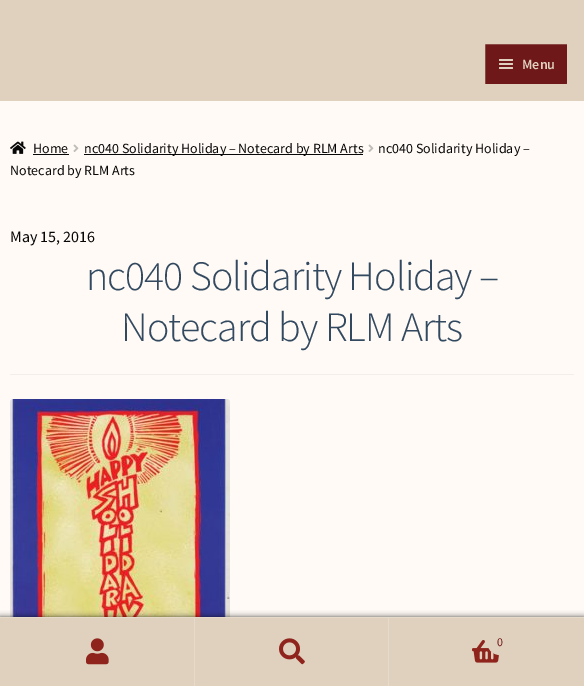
%!PS
<< /PageSize [584 686] /PageUsesTransparency true >> setpagedevice
/rgb { 3 { 255 div 3 1 roll } repeat setrgbcolor } def
/font { [ exch dup neg 0 0 3 -1 roll 0 0 ] selectfont } def
/text { moveto show } def
/alpha { dup .setfillconstantalpha .setstrokeconstantalpha } def
/circle { newpath 0 360 arc closepath } def
/roundrect { 5 dict begin { /r /h /w /y /x } { exch def } forall
  x r add y moveto x w add y 2 copy h add r arct x w add y h add x 1 index r arct
  x y h add x y r arct x y 2 copy exch w add exch r arct closepath end } def
/shadow { 12 dict begin { /a /b /q /h /w /y /x } { exch def } forall gsave /was 0 def
  9 -2 -9 { dup b mul 4 div /e exch def 1 sub .425 mul 2.718 exch exp 1 add a .99 .min exch div /now exch def
    1 1 now sub 1 was sub div sub alpha /was now def
    w h .min e 2 mul add 0 gt { x e sub y e sub w e 2 mul add h e 2 mul add
      q e add b .6 mul add w h .min 2 div e add .min 0 .max roundrect fill } if } for grestore end } def
/picture { 5 dict begin { /h /w /y /x /name } { exch def } forall
  gsave x y translate w h scale
  w h 8 [w 0 0 h 0 0] name (r) file false 3 colorimage grestore end } def
0 .pushpdf14devicefilter
0 686 translate 1 -1 scale
4 setmiterlimit
255 250 245 rgb
0 0 584 686 rectfill
224 209 190 rgb
0 0 584 101 rectfill
110 24 25 rgb
484 43 84 42 1 roundrect gsave fill grestore
224 209 190 rgb
2 setlinewidth
stroke
499 59 14 2 1 roundrect fill
499 63 14 2 1 roundrect fill
499 67 14 2 1 roundrect fill
(img_01.rgb) 10 141 16 13 picture
7 7 7 rgb
33 154 36 1 rectfill
(img_02.rgb) 73 144 6 8 picture
84 154 279 1 rectfill
(img_02.rgb) 368 144 6 8 picture
242 238 233 rgb
10 374 564 1 rectfill
(img_03.rgb) 10 399 220 218 picture
0 0 0 rgb
0 617 584 69 0 3 0.7 shadow
230 218 203 rgb
0 617 584 1 rectfill
224 209 190 rgb
0 618 194 68 rectfill
230 218 203 rgb
194 618 1 68 rectfill
(img_04.rgb) 86 638 23 27 picture
224 209 190 rgb
195 618 193 68 rectfill
230 218 203 rgb
388 618 1 68 rectfill
(img_05.rgb) 279 638 26 27 picture
224 209 190 rgb
389 618 195 68 rectfill
(img_06.rgb) 472 640 28 23 picture
500 642 12.5 circle gsave fill grestore
1 setlinewidth
stroke
/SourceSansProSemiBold-SemiBold 14 font
(Menu) 522 69 text
/SourceSansPro-Regular 14 font
7 7 7 rgb
(Home) 33 153 text
(nc040 Solidarity Holiday – Notecard by RLM Arts) 84 153 text
(nc040 Solidarity Holiday –) 378 153 text
(Notecard by RLM Arts) 10 175 text
/SourceSansPro-Regular 16 font
(May 15, 2016) 10 242 text
/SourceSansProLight-Light 41.9 font
50 73 96 rgb
86 290 moveto -1 0 (nc040 Solidarity Holiday –) ashow
121 341 moveto -1 0 (Notecard by RLM Arts) ashow
/SourceSansPro-Regular 12 font
111 24 25 rgb
(0) 497 646 text
.poppdf14devicefilter showpage
